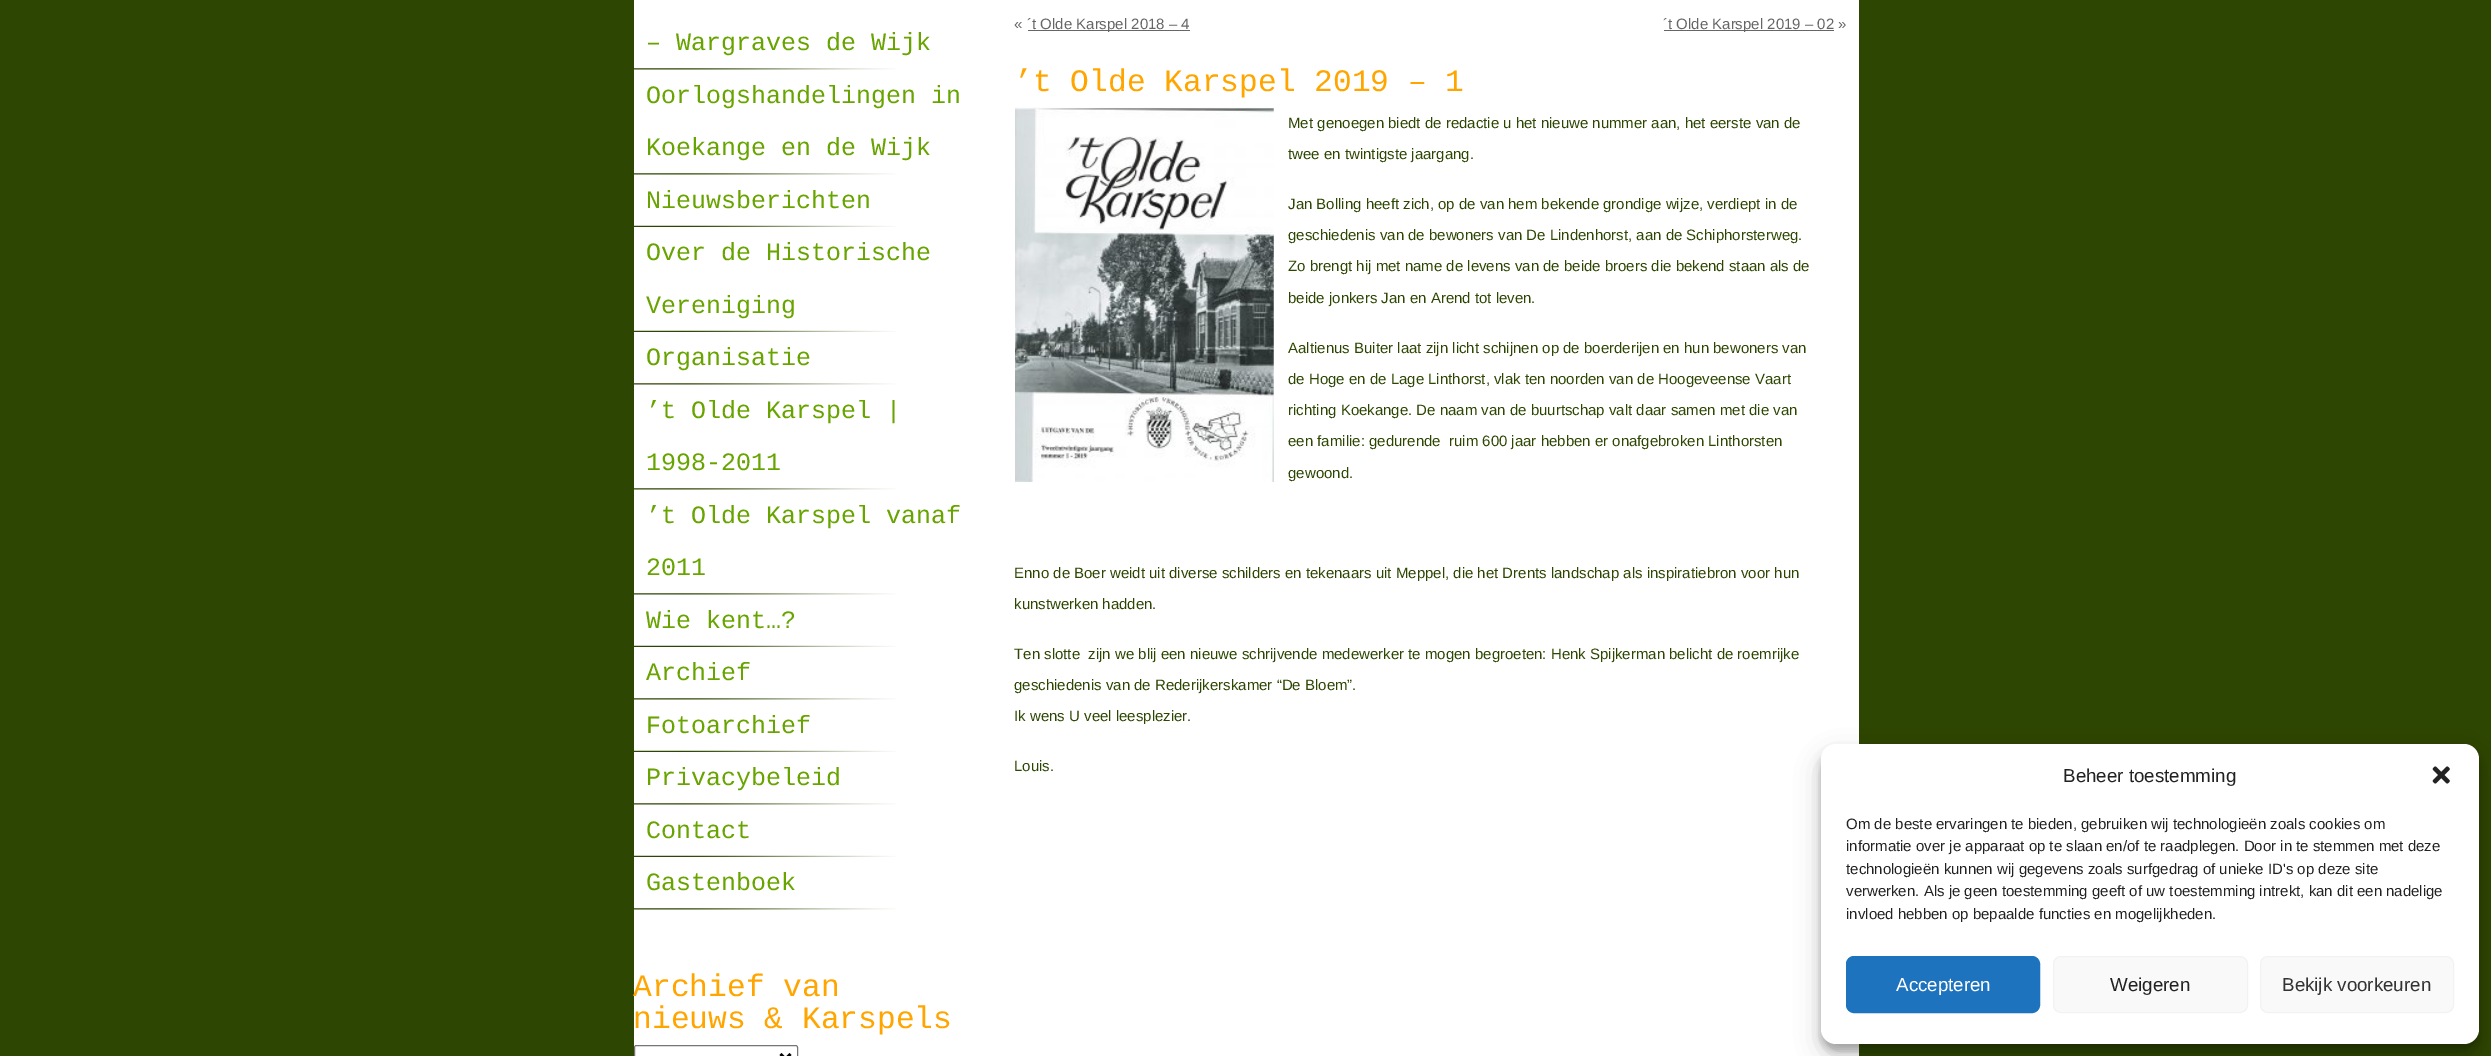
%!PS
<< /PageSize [2491 1056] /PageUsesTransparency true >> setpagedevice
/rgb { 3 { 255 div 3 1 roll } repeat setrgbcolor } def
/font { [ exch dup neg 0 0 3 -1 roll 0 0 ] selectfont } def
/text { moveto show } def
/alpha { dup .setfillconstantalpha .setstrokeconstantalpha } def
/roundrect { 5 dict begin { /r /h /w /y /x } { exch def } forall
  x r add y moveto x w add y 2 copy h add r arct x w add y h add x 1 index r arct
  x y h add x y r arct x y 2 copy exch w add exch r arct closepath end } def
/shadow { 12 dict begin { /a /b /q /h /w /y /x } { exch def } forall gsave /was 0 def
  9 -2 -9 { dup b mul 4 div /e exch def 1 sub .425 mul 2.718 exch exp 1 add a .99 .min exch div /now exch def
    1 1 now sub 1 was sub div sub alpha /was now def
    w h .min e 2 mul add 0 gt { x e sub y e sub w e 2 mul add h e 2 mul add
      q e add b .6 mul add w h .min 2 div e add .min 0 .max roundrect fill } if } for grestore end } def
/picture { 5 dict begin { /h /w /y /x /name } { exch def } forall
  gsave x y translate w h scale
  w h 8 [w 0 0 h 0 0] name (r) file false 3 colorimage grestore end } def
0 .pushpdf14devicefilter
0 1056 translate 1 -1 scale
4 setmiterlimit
45 70 1 rgb
0 0 2491 1056 rectfill
255 255 255 rgb
634 0 1225 1056 rectfill
(img_01.rgb) 634 68 262 2 picture
(img_01.rgb) 634 173 262 2 picture
(img_02.rgb) 634 225 262 2 picture
(img_02.rgb) 634 330 262 2 picture
(img_01.rgb) 634 383 262 2 picture
(img_01.rgb) 634 488 262 2 picture
(img_01.rgb) 634 593 262 2 picture
(img_02.rgb) 634 645 262 2 picture
(img_01.rgb) 634 698 262 2 picture
(img_02.rgb) 634 750 262 2 picture
(img_01.rgb) 634 803 262 2 picture
(img_02.rgb) 634 855 262 2 picture
(img_01.rgb) 634 908 262 2 picture
118 118 118 rgb
634.5 1045.5 163 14 2 roundrect stroke
0 0 0 rgb
2.5 setlinewidth
780.5 1054 moveto 5 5 rlineto 5 -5 rlineto stroke
102 102 102 rgb
1028 30 162 1 rectfill
1664 30 170 1 rectfill
(img_03.rgb) 1015 107 259 375 picture
0 0 0 rgb
1821 751 658 300 15 4 0.23 shadow
1821 756 658 300 15 12.5 0.19 shadow
255 255 255 rgb
1821 744 658 300 15 roundrect fill
(img_04.rgb) 2432 766 18 18 picture
30 115 190 rgb
1846.5 956.5 193 56 7.5 roundrect gsave fill grestore
1 setlinewidth
stroke
249 249 249 rgb
2053.5 956.5 194 56 7.5 roundrect gsave fill grestore
242 242 242 rgb
stroke
249 249 249 rgb
2260.5 956.5 193 56 7.5 roundrect gsave fill grestore
242 242 242 rgb
stroke
/LiberationMono-Regular 25 font
104 164 0 rgb
(– Wargraves de Wijk) 646 50 text
(Oorlogshandelingen in) 646 103 text
(Koekange en de Wijk) 646 155 text
(Nieuwsberichten) 646 208 text
(Over de Historische) 646 260 text
(Vereniging) 646 313 text
(Organisatie) 646 365 text
(’t Olde Karspel |) 646 418 text
(1998-2011) 646 470 text
(’t Olde Karspel vanaf) 646 523 text
(2011) 646 575 text
(Wie kent…?) 646 628 text
(Archief) 646 680 text
(Fotoarchief) 646 733 text
(Privacybeleid) 646 785 text
(Contact) 646 838 text
(Gastenboek) 646 890 text
/LiberationMono-Regular 31.25 font
255 165 0 rgb
(Archief van) 633 996 text
(nieuws & Karspels) 633 1028 text
/LiberationSans-Regular 15 font
102 102 102 rgb
(«) 1014 29 text
(´t Olde Karspel 2018 – 4) 1027 29 text
(´t Olde Karspel 2019 – 02 ») 1663 29 text
/LiberationMono-Regular 31.25 font
255 165 0 rgb
(’t Olde Karspel 2019 – 1) 1014 91 text
/LiberationSans-Regular 15 font
45 70 1 rgb
(Met genoegen biedt de redactie u het nieuwe nummer aan, het eerste van de) 1288 128 text
(twee en twintigste jaargang.) 1288 159 text
(Jan Bolling heeft zich, op de van hem bekende grondige wijze, verdiept in de) 1288 209 text
(geschiedenis van de bewoners van De Lindenhorst, aan de Schiphorsterweg.) 1288 240 text
(Zo brengt hij met name de levens van de beide broers die bekend staan als de) 1288 271 text
(beide jonkers Jan en Arend tot leven.) 1288 303 text
(Aaltienus Buiter laat zijn licht schijnen op de boerderijen en hun bewoners van) 1288 353 text
(de Hoge en de Lage Linthorst, vlak ten noorden van de Hoogeveense Vaart) 1288 384 text
(richting Koekange. De naam van de buurtschap valt daar samen met die van) 1288 415 text
(een familie: gedurende  ruim 600 jaar hebben er onafgebroken Linthorsten) 1288 446 text
(gewoond.) 1288 478 text
(Enno de Boer weidt uit diverse schilders en tekenaars uit Meppel, die het Drents landschap als inspiratiebron voor hun) 1014 578 text
(kunstwerken hadden.) 1014 609 text
(Ten slotte  zijn we blij een nieuwe schrijvende medewerker te mogen begroeten: Henk Spijkerman belicht de roemrijke) 1014 659 text
(geschiedenis van de Rederijkerskamer “De Bloem”.) 1014 690 text
(Ik wens U veel leesplezier.) 1014 721 text
(Louis.) 1014 771 text
/LiberationSans-Regular 18.75 font
34 34 34 rgb
(Beheer toestemming) 2063 782 text
/LiberationSans-Regular 15 font
(Om de beste ervaringen te bieden, gebruiken wij technologieën zoals cookies om) 1846 829 text
(informatie over je apparaat op te slaan en/of te raadplegen. Door in te stemmen met deze) 1846 851 text
(technologieën kunnen wij gegevens zoals surfgedrag of unieke ID's op deze site) 1846 874 text
(verwerken. Als je geen toestemming geeft of uw toestemming intrekt, kan dit een nadelige) 1846 896 text
(invloed hebben op bepaalde functies en mogelijkheden.) 1846 919 text
/LiberationSans-Regular 18.75 font
255 255 255 rgb
(Accepteren) 1896 991 text
34 34 34 rgb
(Weigeren) 2110 991 text
51 51 51 rgb
(Bekijk voorkeuren) 2282 991 text
.poppdf14devicefilter showpage
